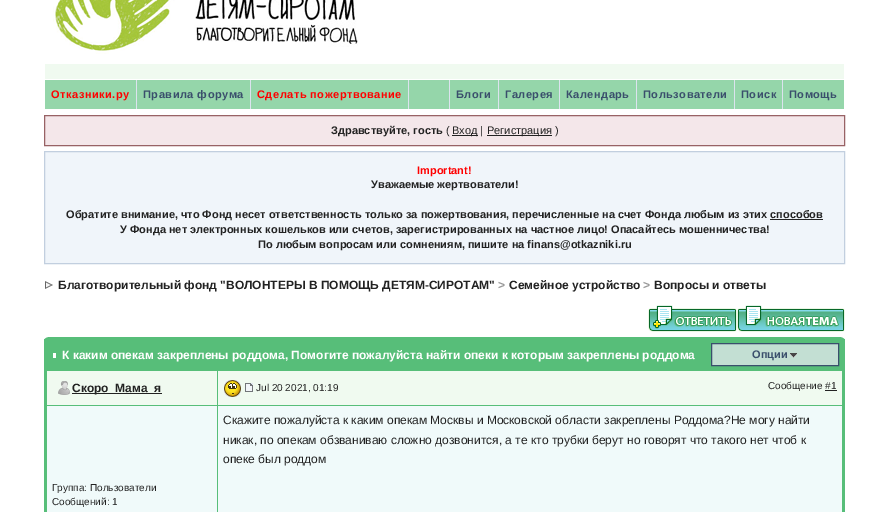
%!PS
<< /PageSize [889 512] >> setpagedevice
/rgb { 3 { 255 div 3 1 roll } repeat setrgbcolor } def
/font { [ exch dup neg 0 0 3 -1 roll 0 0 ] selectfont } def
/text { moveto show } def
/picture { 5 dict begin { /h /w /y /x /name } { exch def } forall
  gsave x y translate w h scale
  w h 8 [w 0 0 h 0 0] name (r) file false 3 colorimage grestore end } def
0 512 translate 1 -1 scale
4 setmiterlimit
255 255 255 rgb
0 0 889 512 rectfill
240 250 240 rgb
45 64 799 15 rectfill
(img_01.rgb) 53 0 305 54 picture
149 214 170 rgb
45 80 799 29 rectfill
220 227 238 rgb
136 80 1 29 rectfill
250 80 1 29 rectfill
408 80 1 29 rectfill
449 80 1 29 rectfill
498 80 1 29 rectfill
559 80 1 29 rectfill
636 80 1 29 rectfill
734 80 1 29 rectfill
782 80 1 29 rectfill
244 231 234 rgb
44.5 115.5 moveto 800 0 rlineto 0 30 rlineto -800 0 rlineto closepath gsave fill grestore
152 98 101 rgb
stroke
34 34 34 rgb
452 135 26 1 rectfill
487 135 65 1 rectfill
240 245 250 rgb
44.5 151.5 moveto 800 0 rlineto 0 112 rlineto -800 0 rlineto closepath gsave fill grestore
194 207 223 rgb
stroke
34 34 34 rgb
770 219 53 1 rectfill
(img_02.rgb) 45 281 8 8 picture
(img_03.rgb) 648 305 89 27 picture
(img_04.rgb) 737 305 108 27 picture
87 190 121 rgb
44 337 801 175 rectfill
(img_05.rgb) 44 337 4 2 picture
(img_06.rgb) 841 337 4 2 picture
255 255 255 rgb
53 353 3 5 rectfill
195 223 211 rgb
711.5 343.5 moveto 127 0 rlineto 0 22 rlineto -127 0 rlineto closepath gsave fill grestore
58 79 108 rgb
stroke
(img_07.rgb) 790 353 7 5 picture
240 250 240 rgb
47 371 170 34 rectfill
(img_08.rgb) 58 381 12 14 picture
34 34 34 rgb
72 393 90 1 rectfill
240 250 240 rgb
218 371 624 34 rectfill
(img_09.rgb) 224 380 17 17 picture
(img_10.rgb) 245 383 8 9 picture
34 34 34 rgb
825 390 12 1 rectfill
240 250 250 rgb
218 406 624 106 rectfill
47 406 170 106 rectfill
/LiberationSans-Bold 11 font
255 0 0 rgb
51 98 moveto 0.5 0 (Отказники.ру) ashow
58 79 108 rgb
143 98 moveto 0.5 0 (Правила форума) ashow
255 0 0 rgb
257 98 moveto 0.5 0 (Сделать пожертвование) ashow
58 79 108 rgb
456 98 moveto 0.5 0 (Блоги) ashow
505 98 moveto 0.5 0 (Галерея) ashow
566 98 moveto 0.5 0 (Календарь) ashow
643 98 moveto 0.5 0 (Пользователи) ashow
741 98 moveto 0.5 0 (Поиск) ashow
789 98 moveto 0.5 0 (Помощь) ashow
34 34 34 rgb
(Здравствуйте, гость) 331 134 text
/LiberationSans-Regular 11 font
(\() 446 134 text
(Вход |) 452 134 text
(Регистрация \)) 487 134 text
/LiberationSans-Bold 11 font
255 0 0 rgb
(Important!) 417 174 text
34 34 34 rgb
(Уважаемые жертвователи!) 371 188 text
(Обратите внимание, что Фонд несет ответственность только за пожертвования, перечисленные на счет Фонда любым из этих способов) 66 218 text
(У Фонда нет электронных кошельков или счетов, зарегистрированных на частное лицо! Опасайтесь мошенничества!) 120 233 text
(По любым вопросам или сомнениям, пишите на finans@otkazniki.ru) 258 248 text
/LiberationSans-Bold 12 font
(Благотворительный фонд "ВОЛОНТЕРЫ В ПОМОЩЬ ДЕТЯМ-СИРОТАМ") 58 289 text
153 153 153 rgb
(>) 498 289 text
34 34 34 rgb
(Семейное устройство) 509 289 text
153 153 153 rgb
(>) 643 289 text
34 34 34 rgb
(Вопросы и ответы) 654 289 text
255 255 255 rgb
(К каким опекам закреплены роддома, Помогите пожалуйста найти опеки к которым закреплены роддома) 62 359 text
/LiberationSans-Bold 11 font
58 79 108 rgb
(Опции) 752 358 text
/LiberationSans-Bold 12 font
34 34 34 rgb
(Скоро_Мама_я) 72 392 text
/LiberationSans-Regular 10 font
(Jul 20 2021, 01:19) 256 391 text
(Сообщение #1) 768 389 text
/LiberationSans-Regular 12 font
(Скажите пожалуйста к каким опекам Москвы и Московской области закреплены Роддома?Не могу найти) 223 424 text
(никак, по опекам обзваниваю сложно дозвонится, а те кто трубки берут но говорят что такого нет чтоб к) 223 444 text
(опеке был роддом) 223 463 text
/LiberationSans-Regular 10 font
(Группа: Пользователи) 52 491 text
(Сообщений: 1) 52 505 text
showpage
